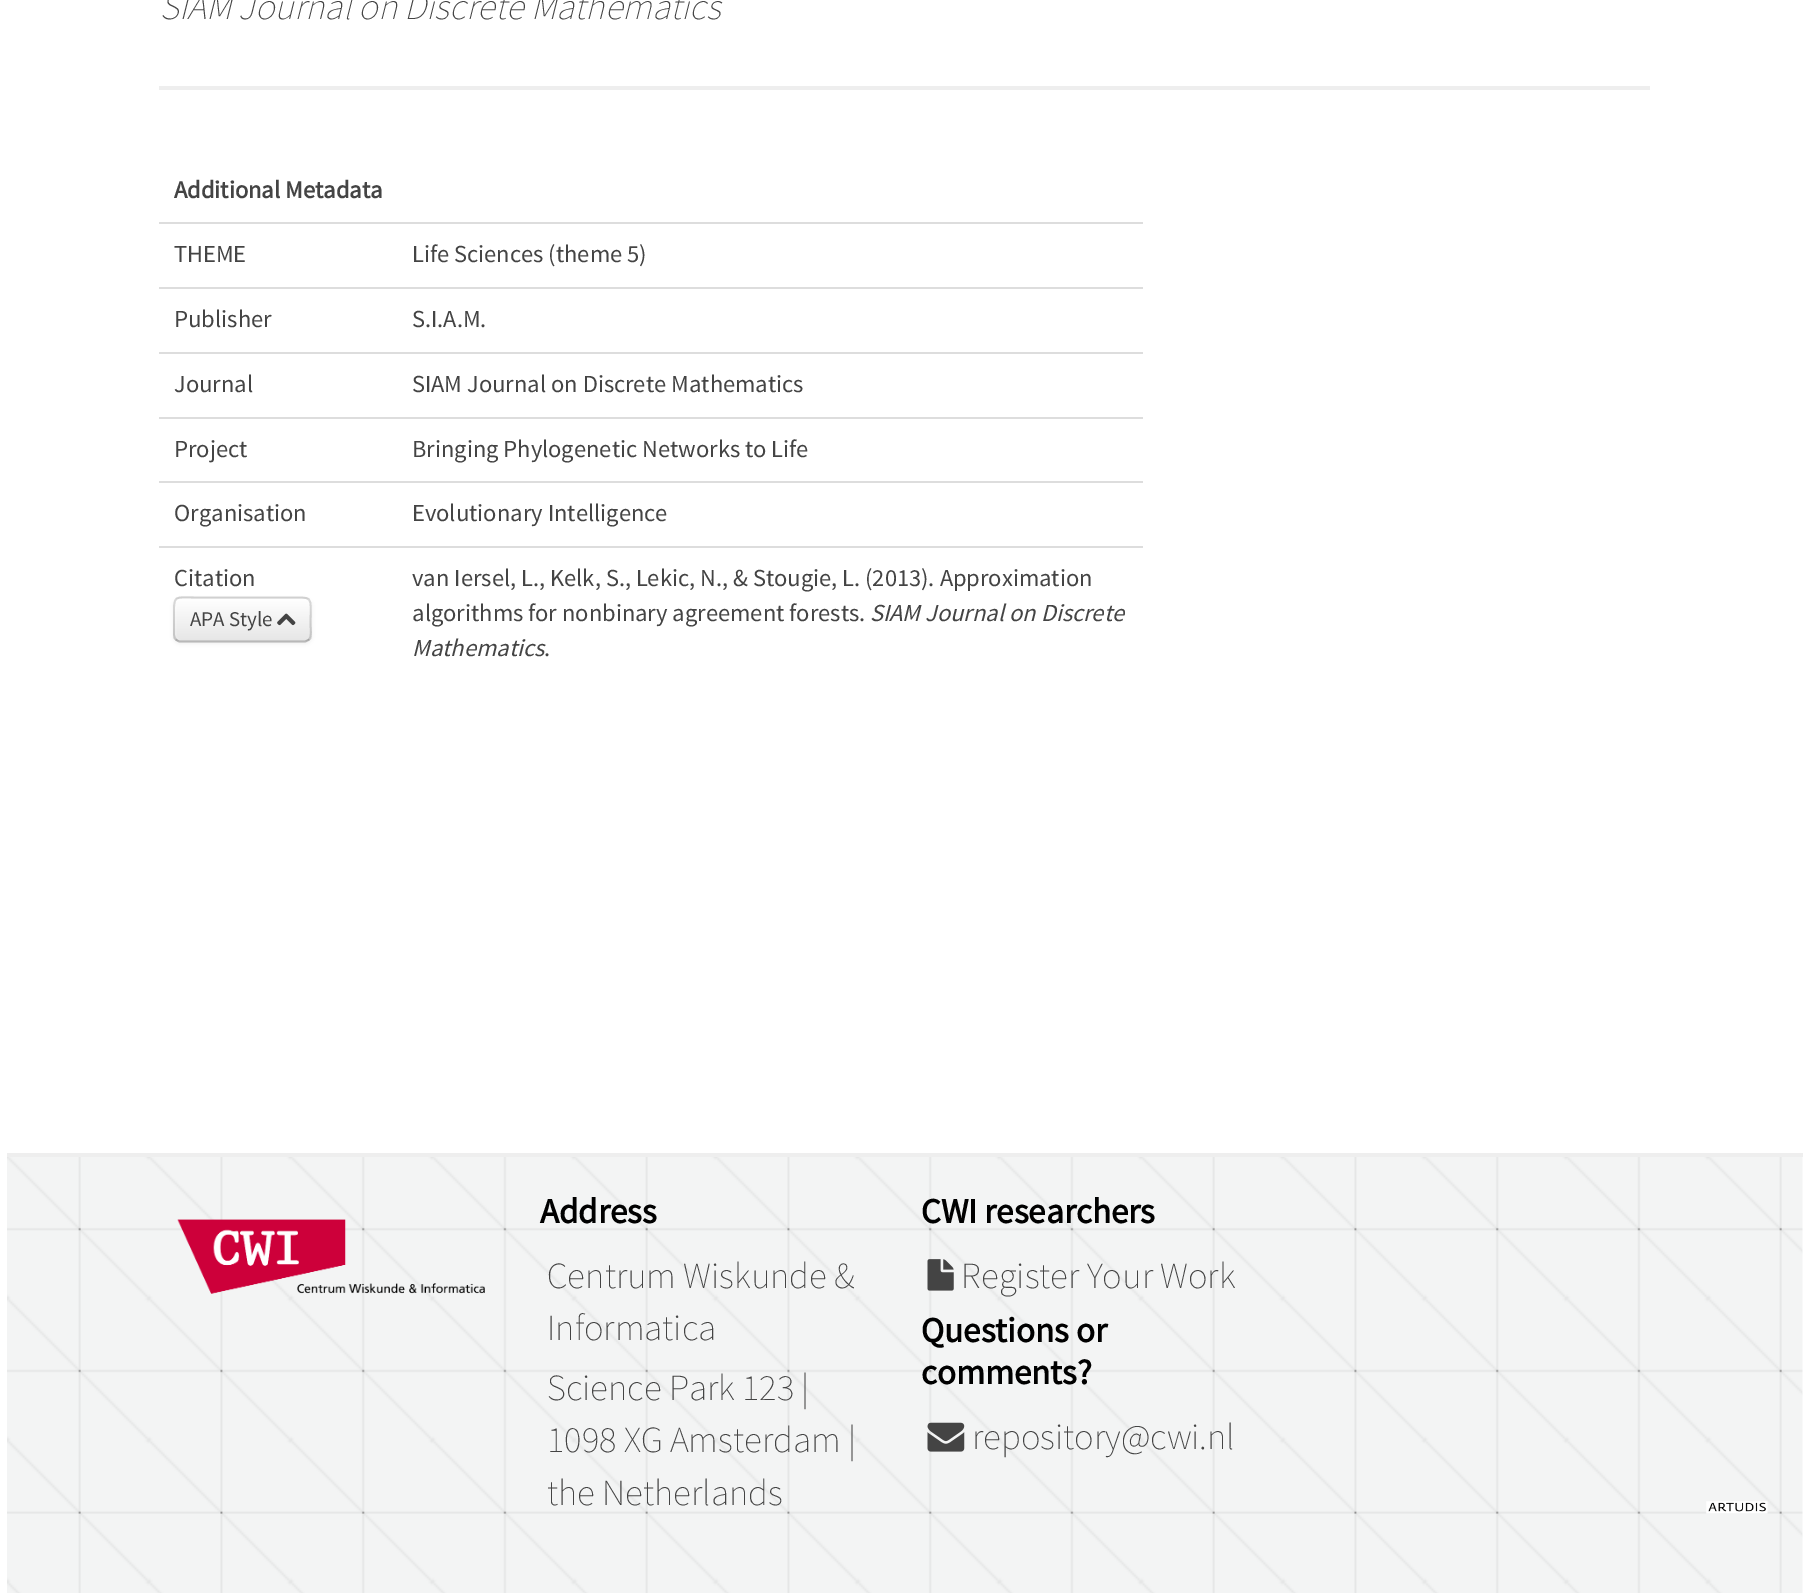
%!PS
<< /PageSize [1809 1593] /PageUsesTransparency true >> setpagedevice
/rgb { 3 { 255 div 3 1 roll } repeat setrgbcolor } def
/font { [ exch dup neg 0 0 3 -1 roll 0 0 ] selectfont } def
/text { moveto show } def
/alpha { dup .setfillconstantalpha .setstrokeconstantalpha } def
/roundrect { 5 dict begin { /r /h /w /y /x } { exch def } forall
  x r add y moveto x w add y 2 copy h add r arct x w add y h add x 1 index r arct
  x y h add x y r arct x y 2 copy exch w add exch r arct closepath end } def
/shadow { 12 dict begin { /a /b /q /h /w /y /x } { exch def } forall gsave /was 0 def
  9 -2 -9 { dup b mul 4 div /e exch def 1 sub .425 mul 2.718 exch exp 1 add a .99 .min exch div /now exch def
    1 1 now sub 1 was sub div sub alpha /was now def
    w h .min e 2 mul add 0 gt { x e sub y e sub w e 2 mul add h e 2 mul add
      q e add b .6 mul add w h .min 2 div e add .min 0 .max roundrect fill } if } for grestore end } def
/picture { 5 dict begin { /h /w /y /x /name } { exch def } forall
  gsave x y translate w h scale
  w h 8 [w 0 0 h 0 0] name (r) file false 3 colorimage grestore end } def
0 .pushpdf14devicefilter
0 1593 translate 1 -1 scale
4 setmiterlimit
255 255 255 rgb
0 0 1809 1593 rectfill
238 238 238 rgb
159 86 1491 4 rectfill
221 221 221 rgb
159 222 984 2 rectfill
159 287 984 2 rectfill
159 352 984 2 rectfill
159 417 984 2 rectfill
159 481 984 2 rectfill
0 0 0 rgb
173 599 139 45 7 2 0.05 shadow
245 245 245 rgb
173 597 139 45 7 roundrect fill
gsave
173 597 139 45 7 roundrect clip newpath
gsave 173 599 moveto 139 0 rlineto 0 42 rlineto -139 0 rlineto closepath clip newpath
<< /ShadingType 2 /ColorSpace /DeviceRGB /Coords [242 599 242 641] /Extend [true true] /Function << /FunctionType 2 /Domain [0 1] /C0 [1 1 1] /C1 [0.902 0.902 0.902] /N 1 >> >> shfill grestore
grestore
0.12 alpha
255 255 255 rgb
179 599 moveto -2 0 -4 3 -4 5 rcurveto 0 32 rlineto 0 3 2 5 5 5 rcurveto 125 0 rlineto 1 0 3 -1 4 -1 rcurveto -3 0 rlineto -124 0 rlineto -3 0 -5 -2 -5 -5 rcurveto 0 -31 rlineto 0 -2 1 -4 2 -5 rcurveto closepath fill
0.25 alpha
0 0 0 rgb
1.8 setlinewidth
309 639.5 moveto -1.5 1 -3 2 -4.5 2 rcurveto -124.5 0 rlineto -1.5 0 -3 -1 -4 -2 rcurveto stroke
0.15 alpha
176 639.5 moveto -2.5 -2.5 -2 -6.5 -2 -9.5 rcurveto 0 -10.5 rlineto 0 -26.5 -2 -22 27 -22 rcurveto 83 0 rlineto 31.5 0 26.5 -3.5 26.5 27.5 rcurveto 0 3.5 1.5 11 -1.5 14.5 rcurveto stroke
1 alpha
(img_01.rgb) 277 613 19 13 picture
221 221 221 rgb
159 546 984 2 rectfill
(img_02.rgb) 7 1157 1796 436 picture
238 238 238 rgb
7 1153 1796 4 rectfill
(img_03.rgb) 177 1219 308 75 picture
(img_04.rgb) 927 1259 27 32 picture
(img_05.rgb) 927 1422 38 30 picture
(img_06.rgb) 1706 1501 62 13 picture
/SourceSansPro-ExtraLightItalic 36.75 font
68 68 68 rgb
(SIAM Journal on Discrete Mathematics) 160 19 text
/SourceSansPro-Bold 24.5 font
(Additional Metadata) 174 198 text
/SourceSansPro-Regular 24.5 font
(THEME) 174 262 text
(Life Sciences \(theme 5\)) 412 262 text
(Publisher) 174 327 text
(S.I.A.M.) 412 327 text
(Journal) 174 392 text
(SIAM Journal on Discrete Mathematics) 412 392 text
(Project) 174 457 text
(Bringing Phylogenetic Networks to Life) 412 457 text
(Organisation) 174 521 text
(Evolutionary Intelligence) 412 521 text
(Citation) 174 586 text
/SourceSansPro-Regular 21 font
(APA Style) 190 626 text
/SourceSansPro-Regular 24.5 font
(van Iersel, L., Kelk, S., Lekic, N., & Stougie, L. \(2013\). Approximation) 412 586 text
(algorithms for nonbinary agreement forests.) 412 621 text
/SourceSansPro-Italic 24.5 font
(SIAM Journal on Discrete) 870 621 text
(Mathematics) 412 656 text
/SourceSansPro-Regular 24.5 font
(.) 544 656 text
/SourceSansPro-Bold 35 font
0 0 0 rgb
(Address) 540 1223 text
/SourceSansPro-ExtraLight 36.75 font
68 68 68 rgb
(Centrum Wiskunde &) 547 1288 text
(Informatica) 547 1340 text
(Science Park 123 |) 547 1400 text
(1098 XG Amsterdam |) 547 1452 text
(the Netherlands) 547 1505 text
/SourceSansPro-Bold 35 font
0 0 0 rgb
(CWI researchers) 921 1223 text
/SourceSansPro-ExtraLight 36.75 font
68 68 68 rgb
(Register Your Work) 961 1288 text
/SourceSansPro-Bold 35 font
0 0 0 rgb
(Questions or) 921 1342 text
(comments?) 921 1384 text
/SourceSansPro-ExtraLight 36.75 font
68 68 68 rgb
(repository@cwi.nl) 972 1449 text
.poppdf14devicefilter showpage
